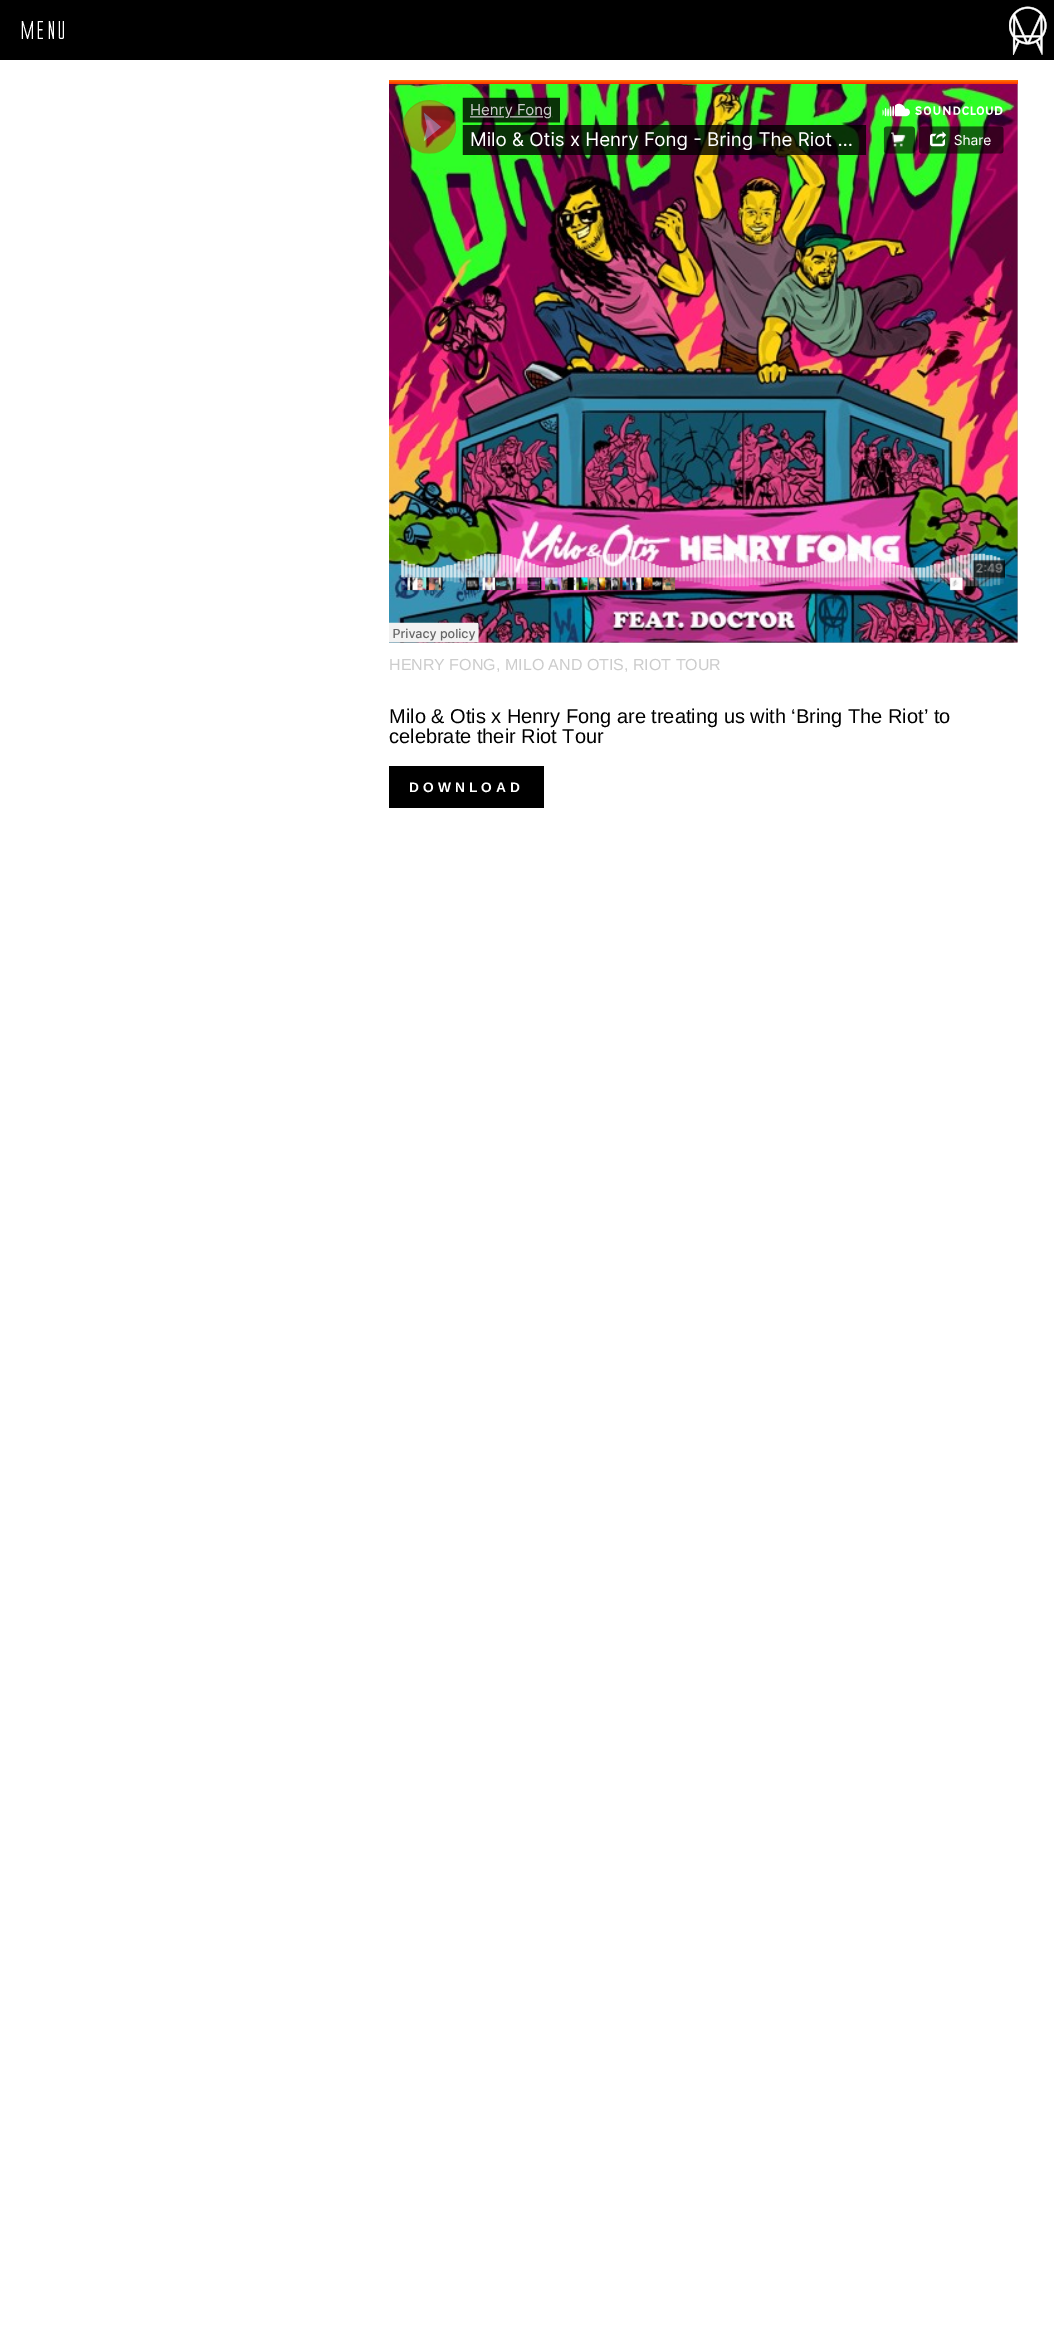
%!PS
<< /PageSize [1054 2334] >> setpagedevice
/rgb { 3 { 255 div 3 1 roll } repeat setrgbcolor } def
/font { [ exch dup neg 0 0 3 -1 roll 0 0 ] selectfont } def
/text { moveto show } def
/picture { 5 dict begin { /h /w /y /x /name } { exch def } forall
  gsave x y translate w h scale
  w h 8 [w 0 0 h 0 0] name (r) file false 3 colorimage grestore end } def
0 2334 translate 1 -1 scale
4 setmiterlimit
255 255 255 rgb
0 0 1054 2334 rectfill
0 0 0 rgb
0 0 1054 60 rectfill
(img_01.rgb) 1009 6 38 49 picture
(img_02.rgb) 389 80 629 563 picture
389 766 155 42 rectfill
/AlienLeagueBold-Bold 24 font
255 255 255 rgb
(MENU) 20 39 text
/LiberationSans-Regular 16 font
204 204 204 rgb
(HENRY FONG) 389 670 text
(, MILO AND OTIS) 496 670 text
(, RIOT TOUR) 624 670 text
/LiberationSans-Regular 20 font
0 0 0 rgb
(Milo & Otis x Henry Fong are treating us with ‘Bring The Riot’ to) 389 723 text
(celebrate their Riot Tour) 389 743 text
/LiberationSans-Bold 13.75 font
255 255 255 rgb
409 792 moveto 4 0 (DOWNLOAD) ashow
showpage
